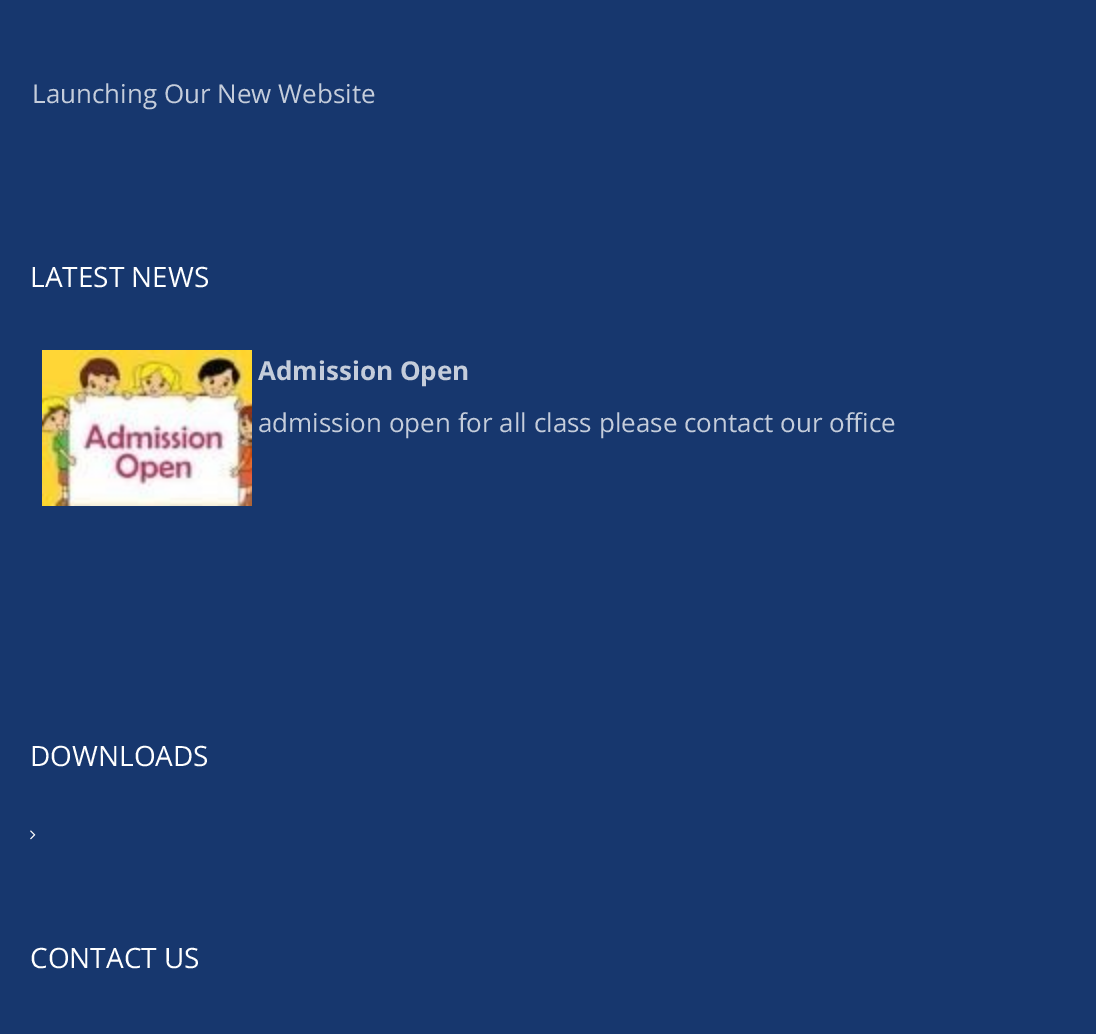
%!PS
<< /PageSize [1096 1034] >> setpagedevice
/rgb { 3 { 255 div 3 1 roll } repeat setrgbcolor } def
/font { [ exch dup neg 0 0 3 -1 roll 0 0 ] selectfont } def
/text { moveto show } def
/picture { 5 dict begin { /h /w /y /x /name } { exch def } forall
  gsave x y translate w h scale
  w h 8 [w 0 0 h 0 0] name (r) file false 3 colorimage grestore end } def
0 1034 translate 1 -1 scale
4 setmiterlimit
23 55 110 rgb
0 0 1096 1034 rectfill
(img_01.rgb) 42 350 210 156 picture
(img_02.rgb) 30 830 6 10 picture
/OpenSans-Regular 26 font
197 205 219 rgb
(Launching Our New Website) 32 103 text
/OpenSans-Regular 28 font
255 255 255 rgb
(LATEST NEWS) 30 287 text
/OpenSans-Bold 26 font
197 205 219 rgb
(Admission Open) 258 380 text
/OpenSans-Regular 26 font
(admission open for all class please contact our office) 258 432 text
/OpenSans-Regular 28 font
255 255 255 rgb
(DOWNLOADS) 30 766 text
(CONTACT US) 30 968 text
showpage
